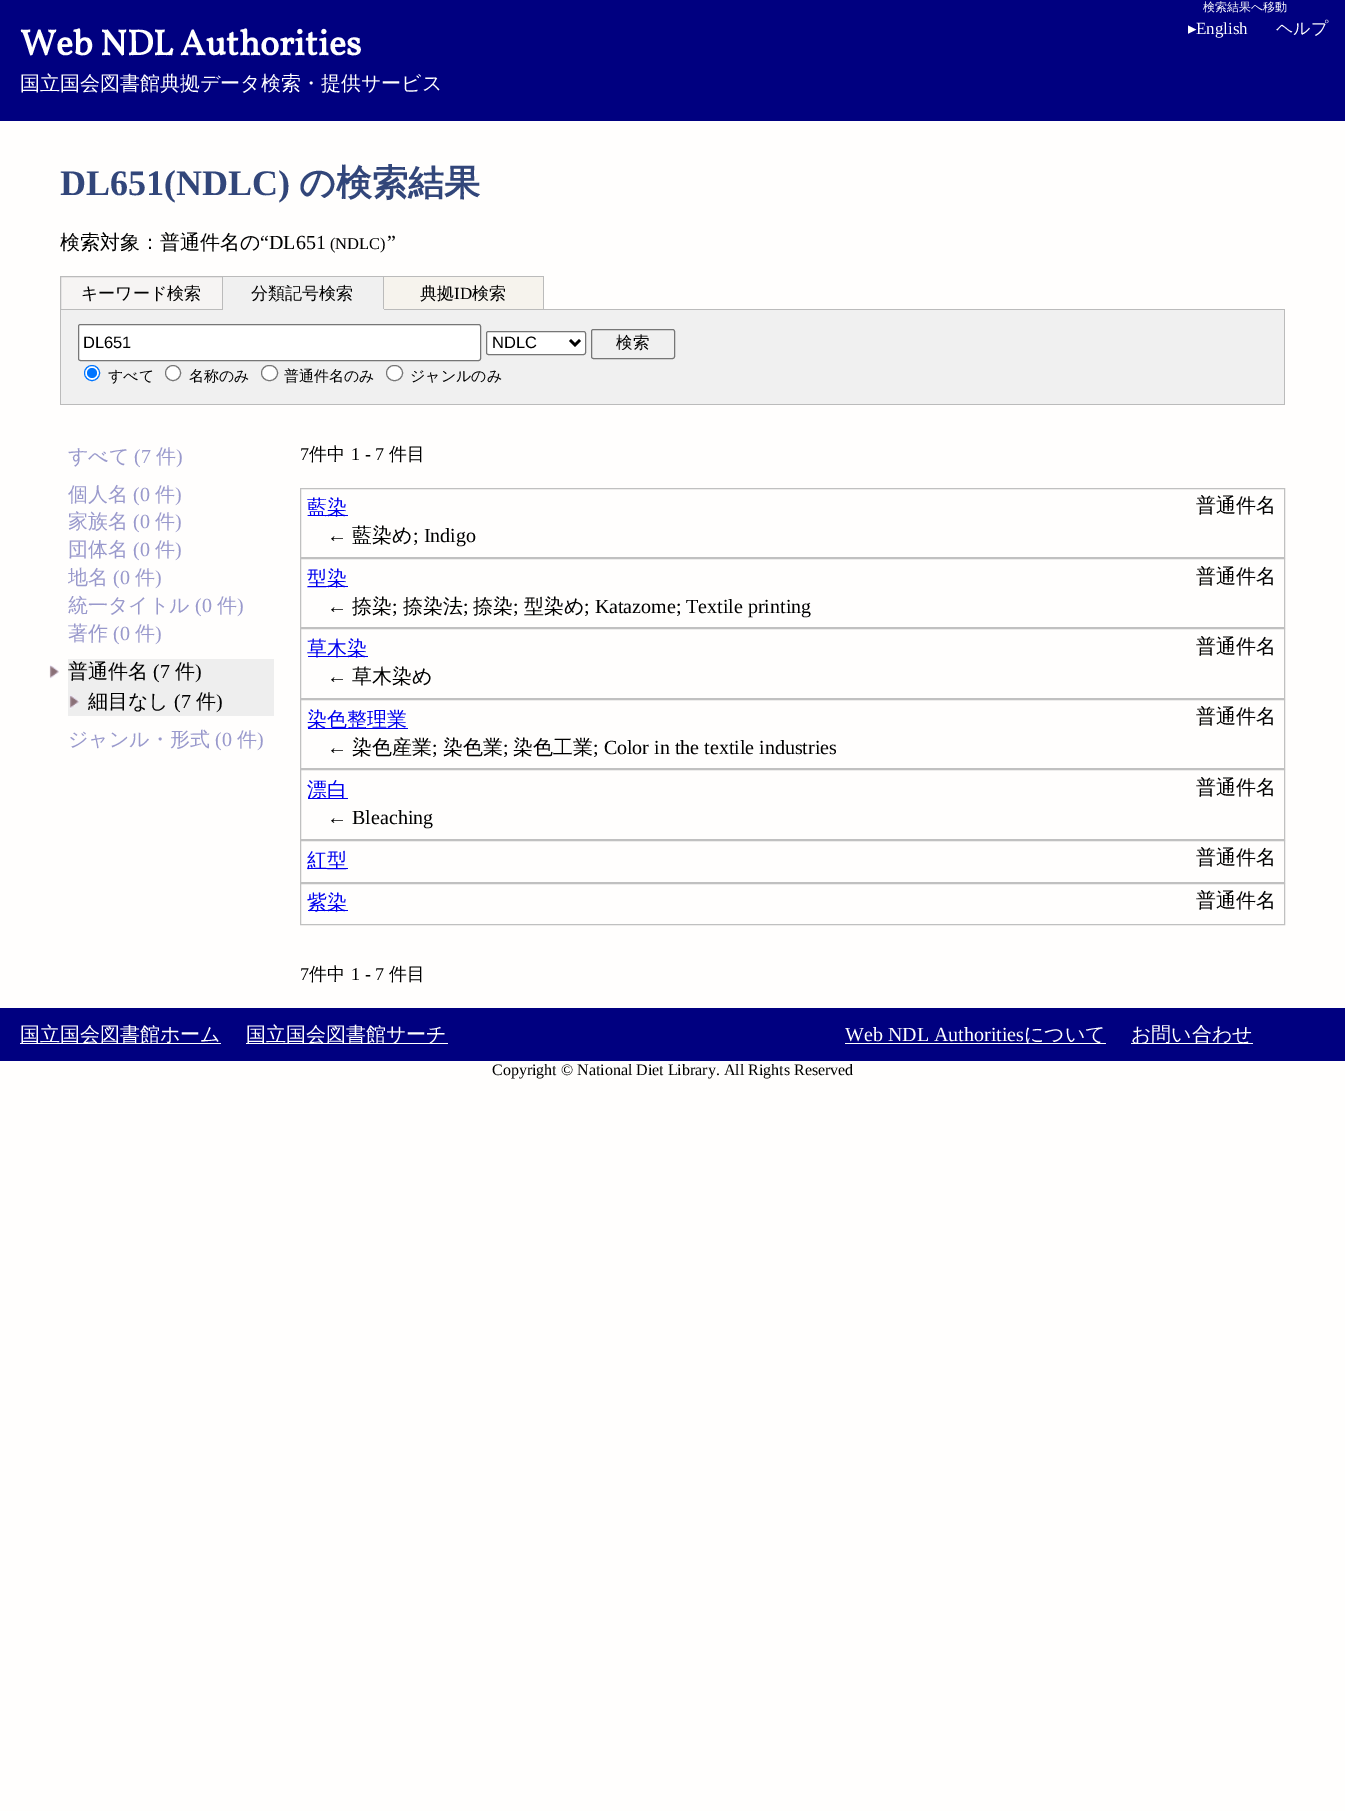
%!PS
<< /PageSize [1345 1811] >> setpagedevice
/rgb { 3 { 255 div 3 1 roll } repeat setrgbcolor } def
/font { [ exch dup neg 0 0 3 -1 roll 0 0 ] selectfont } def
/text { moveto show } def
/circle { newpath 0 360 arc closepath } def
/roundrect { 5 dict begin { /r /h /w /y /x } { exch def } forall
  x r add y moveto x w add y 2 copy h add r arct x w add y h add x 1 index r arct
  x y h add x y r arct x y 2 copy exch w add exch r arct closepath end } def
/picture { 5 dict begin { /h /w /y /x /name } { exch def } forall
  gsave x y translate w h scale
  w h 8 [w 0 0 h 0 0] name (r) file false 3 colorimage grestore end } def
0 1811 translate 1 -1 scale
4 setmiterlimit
255 254 253 rgb
0 0 1345 1811 rectfill
0 0 128 rgb
0 0 1345 121 rectfill
246 244 243 rgb
60.5 276.5 moveto 162 0 rlineto 0 33 rlineto -162 0 rlineto closepath gsave fill grestore
187 187 187 rgb
stroke
240 240 240 rgb
223 277 160 32 rectfill
187 187 187 rgb
223 276 321 1 rectfill
383 276 1 34 rectfill
240 240 240 rgb
223 309 161 1 rectfill
246 243 237 rgb
384 277 159 32 rectfill
187 187 187 rgb
543 276 1 34 rectfill
384 309 160 1 rectfill
544 309 741 1 rectfill
240 240 240 rgb
61 310 1223 94 rectfill
187 187 187 rgb
1284 310 1 95 rectfill
60 404 1225 1 rectfill
60 310 1 95 rectfill
255 255 255 rgb
78.5 324.5 402 36 2 roundrect gsave fill grestore
118 118 118 rgb
stroke
255 255 255 rgb
486.5 331.5 99 23 2 roundrect gsave fill grestore
118 118 118 rgb
stroke
0 0 0 rgb
2.5 setlinewidth
570 340 moveto 5 5 rlineto 5 -5 rlineto stroke
118 118 118 rgb
1 setlinewidth
591.5 329.5 83 29 2 roundrect stroke
255 255 255 rgb
92 373 7.5 circle gsave fill grestore
0 117 255 rgb
stroke
92 373 5 circle fill
255 255 255 rgb
173 373 7.5 circle gsave fill grestore
118 118 118 rgb
stroke
255 255 255 rgb
261.5 365.5 16 15 7.5 roundrect gsave fill grestore
118 118 118 rgb
stroke
255 255 255 rgb
386.5 365.5 16 15 7.5 roundrect gsave fill grestore
118 118 118 rgb
stroke
238 238 238 rgb
68 659 206 57 rectfill
(img_01.rgb) 49 665 10 14 picture
(img_02.rgb) 69 695 10 14 picture
192 192 192 rgb
300.5 488.5 984 69 rectstroke
0 0 238 rgb
308 515 40 1 rectfill
192 192 192 rgb
300.5 558.5 984 69 rectstroke
0 0 238 rgb
308 586 40 1 rectfill
192 192 192 rgb
300.5 628.5 984 70 rectstroke
0 0 238 rgb
308 656 60 1 rectfill
192 192 192 rgb
300.5 699.5 984 69 rectstroke
0 0 238 rgb
308 728 100 1 rectfill
192 192 192 rgb
300.5 769.5 984 70 rectstroke
0 0 238 rgb
308 798 40 1 rectfill
192 192 192 rgb
300.5 840.5 984 42 rectstroke
0 0 238 rgb
308 868 40 1 rectfill
192 192 192 rgb
300.5 883.5 984 41 rectstroke
0 0 238 rgb
308 910 40 1 rectfill
0 0 128 rgb
0 1008 1345 53 rectfill
255 255 255 rgb
20 1043 201 1 rectfill
246 1043 202 1 rectfill
845 1043 261 1 rectfill
1131 1043 122 1 rectfill
/WenQuanYiZenHei-Medium 12 font
(検索結果へ移動) 1203 11 text
/Vollkorn-Bold 36 font
(Web NDL Authorities) 20 55 text
/WenQuanYiZenHei-Medium 20 font
(国立国会図書館典拠データ検索・提供サービス) 20 90 text
/DejaVuSans-Regular 17 font
(▸) 1188 34 text
/LiberationSerif-Regular 17 font
(English) 1196 34 text
/WenQuanYiZenHei-Medium 17 font
(ヘルプ) 1276 34 text
/LiberationSerif-Bold 36 font
50 70 122 rgb
(DL651\(NDLC\)) 60 195 text
/WenQuanYiZenHei-Bold 36 font
(の検索結果) 299 195 text
/WenQuanYiZenHei-Medium 20 font
0 0 0 rgb
(検索対象：普通件名の) 60 249 text
/LiberationSerif-Regular 20 font
(“DL651) 260 249 text
/LiberationSerif-Regular 16.5 font
(\(NDLC\)) 330 249 text
/LiberationSerif-Regular 20 font
(”) 387 249 text
/WenQuanYiZenHei-Medium 17 font
(キーワード検索) 81 299 text
(分類記号検索) 251 299 text
(典拠) 420 299 text
/LiberationSerif-Regular 17 font
(ID) 454 299 text
/WenQuanYiZenHei-Medium 17 font
(検索) 472 299 text
/LiberationSans-Regular 16.5 font
(DL651) 83 348 text
(NDLC) 492 348 text
/WenQuanYiZenHei-Medium 16.5 font
(検索) 616 348 text
/WenQuanYiZenHei-Medium 15 font
(すべて) 108 381 text
(名称のみ) 189 381 text
(普通件名のみ) 284 381 text
(ジャンルのみ) 410 381 text
/WenQuanYiZenHei-Medium 20 font
153 153 204 rgb
(すべて) 68 463 text
/LiberationSerif-Regular 20 font
(\(7) 134 463 text
/WenQuanYiZenHei-Medium 20 font
(件) 156 463 text
/LiberationSerif-Regular 20 font
(\)) 176 463 text
/WenQuanYiZenHei-Medium 20 font
(個人名) 68 501 text
/LiberationSerif-Regular 20 font
(\(0) 133 501 text
/WenQuanYiZenHei-Medium 20 font
(件) 155 501 text
/LiberationSerif-Regular 20 font
(\)) 175 501 text
/WenQuanYiZenHei-Medium 20 font
(家族名) 68 528 text
/LiberationSerif-Regular 20 font
(\(0) 133 528 text
/WenQuanYiZenHei-Medium 20 font
(件) 155 528 text
/LiberationSerif-Regular 20 font
(\)) 175 528 text
/WenQuanYiZenHei-Medium 20 font
(団体名) 68 556 text
/LiberationSerif-Regular 20 font
(\(0) 133 556 text
/WenQuanYiZenHei-Medium 20 font
(件) 155 556 text
/LiberationSerif-Regular 20 font
(\)) 175 556 text
/WenQuanYiZenHei-Medium 20 font
(地名) 68 584 text
/LiberationSerif-Regular 20 font
(\(0) 113 584 text
/WenQuanYiZenHei-Medium 20 font
(件) 135 584 text
/LiberationSerif-Regular 20 font
(\)) 155 584 text
/WenQuanYiZenHei-Medium 20 font
(統一タイトル) 68 612 text
/LiberationSerif-Regular 20 font
(\(0) 195 612 text
/WenQuanYiZenHei-Medium 20 font
(件) 217 612 text
/LiberationSerif-Regular 20 font
(\)) 237 612 text
/WenQuanYiZenHei-Medium 20 font
(著作) 68 640 text
/LiberationSerif-Regular 20 font
(\(0) 113 640 text
/WenQuanYiZenHei-Medium 20 font
(件) 135 640 text
/LiberationSerif-Regular 20 font
(\)) 155 640 text
/WenQuanYiZenHei-Medium 20 font
0 0 0 rgb
(普通件名) 68 678 text
/LiberationSerif-Regular 20 font
(\(7) 153 678 text
/WenQuanYiZenHei-Medium 20 font
(件) 175 678 text
/LiberationSerif-Regular 20 font
(\)) 195 678 text
/WenQuanYiZenHei-Medium 20 font
(細目なし) 88 708 text
/LiberationSerif-Regular 20 font
(\(7) 174 708 text
/WenQuanYiZenHei-Medium 20 font
(件) 196 708 text
/LiberationSerif-Regular 20 font
(\)) 216 708 text
/WenQuanYiZenHei-Medium 20 font
153 153 204 rgb
(ジャンル・形式) 68 746 text
/LiberationSerif-Regular 20 font
(\(0) 215 746 text
/WenQuanYiZenHei-Medium 20 font
(件) 237 746 text
/LiberationSerif-Regular 20 font
(\)) 257 746 text
/LiberationSerif-Regular 18 font
0 0 0 rgb
(7) 300 460 text
/WenQuanYiZenHei-Medium 18 font
(件中) 309 460 text
/LiberationSerif-Regular 18 font
(1 - 7) 351 460 text
/WenQuanYiZenHei-Medium 18 font
(件目) 389 460 text
/WenQuanYiZenHei-Medium 20 font
0 0 238 rgb
(藍染) 307 514 text
0 0 0 rgb
(普通件名) 1196 512 text
/LiberationSerif-Regular 20 font
(←) 327 542 text
/WenQuanYiZenHei-Medium 20 font
(藍染め) 352 542 text
/LiberationSerif-Regular 20 font
(; Indigo) 413 542 text
/WenQuanYiZenHei-Medium 20 font
0 0 238 rgb
(型染) 307 585 text
0 0 0 rgb
(普通件名) 1196 583 text
/LiberationSerif-Regular 20 font
(←) 327 613 text
/WenQuanYiZenHei-Medium 20 font
(捺染) 352 613 text
/LiberationSerif-Regular 20 font
(;) 392 613 text
/WenQuanYiZenHei-Medium 20 font
(捺染法) 403 613 text
/LiberationSerif-Regular 20 font
(;) 463 613 text
/WenQuanYiZenHei-Medium 20 font
(捺染) 473 613 text
/LiberationSerif-Regular 20 font
(;) 513 613 text
/WenQuanYiZenHei-Medium 20 font
(型染め) 524 613 text
/LiberationSerif-Regular 20 font
(; Katazome; Textile printing) 584 613 text
/WenQuanYiZenHei-Medium 20 font
0 0 238 rgb
(草木染) 307 655 text
0 0 0 rgb
(普通件名) 1196 653 text
/LiberationSerif-Regular 20 font
(←) 327 683 text
/WenQuanYiZenHei-Medium 20 font
(草木染め) 352 683 text
0 0 238 rgb
(染色整理業) 307 726 text
0 0 0 rgb
(普通件名) 1196 723 text
/LiberationSerif-Regular 20 font
(←) 327 754 text
/WenQuanYiZenHei-Medium 20 font
(染色産業) 352 754 text
/LiberationSerif-Regular 20 font
(;) 432 754 text
/WenQuanYiZenHei-Medium 20 font
(染色業) 443 754 text
/LiberationSerif-Regular 20 font
(;) 503 754 text
/WenQuanYiZenHei-Medium 20 font
(染色工業) 513 754 text
/LiberationSerif-Regular 20 font
(; Color in the textile industries) 593 754 text
/WenQuanYiZenHei-Medium 20 font
0 0 238 rgb
(漂白) 307 796 text
0 0 0 rgb
(普通件名) 1196 794 text
/LiberationSerif-Regular 20 font
(← Bleaching) 327 824 text
/WenQuanYiZenHei-Medium 20 font
0 0 238 rgb
(紅型) 307 867 text
0 0 0 rgb
(普通件名) 1196 864 text
0 0 238 rgb
(紫染) 307 909 text
0 0 0 rgb
(普通件名) 1196 907 text
/LiberationSerif-Regular 18 font
(7) 300 980 text
/WenQuanYiZenHei-Medium 18 font
(件中) 309 980 text
/LiberationSerif-Regular 18 font
(1 - 7) 351 980 text
/WenQuanYiZenHei-Medium 18 font
(件目) 389 980 text
/WenQuanYiZenHei-Medium 20 font
255 255 255 rgb
(国立国会図書館ホーム) 20 1041 text
(国立国会図書館サーチ) 246 1041 text
/LiberationSerif-Regular 20 font
(Web NDL Authorities) 845 1041 text
/WenQuanYiZenHei-Medium 20 font
(について) 1024 1041 text
(お問い合わせ) 1131 1041 text
/LiberationSerif-Regular 16 font
0 0 0 rgb
(Copyright © National Diet Library. All Rights Reserved) 492 1075 text
showpage
